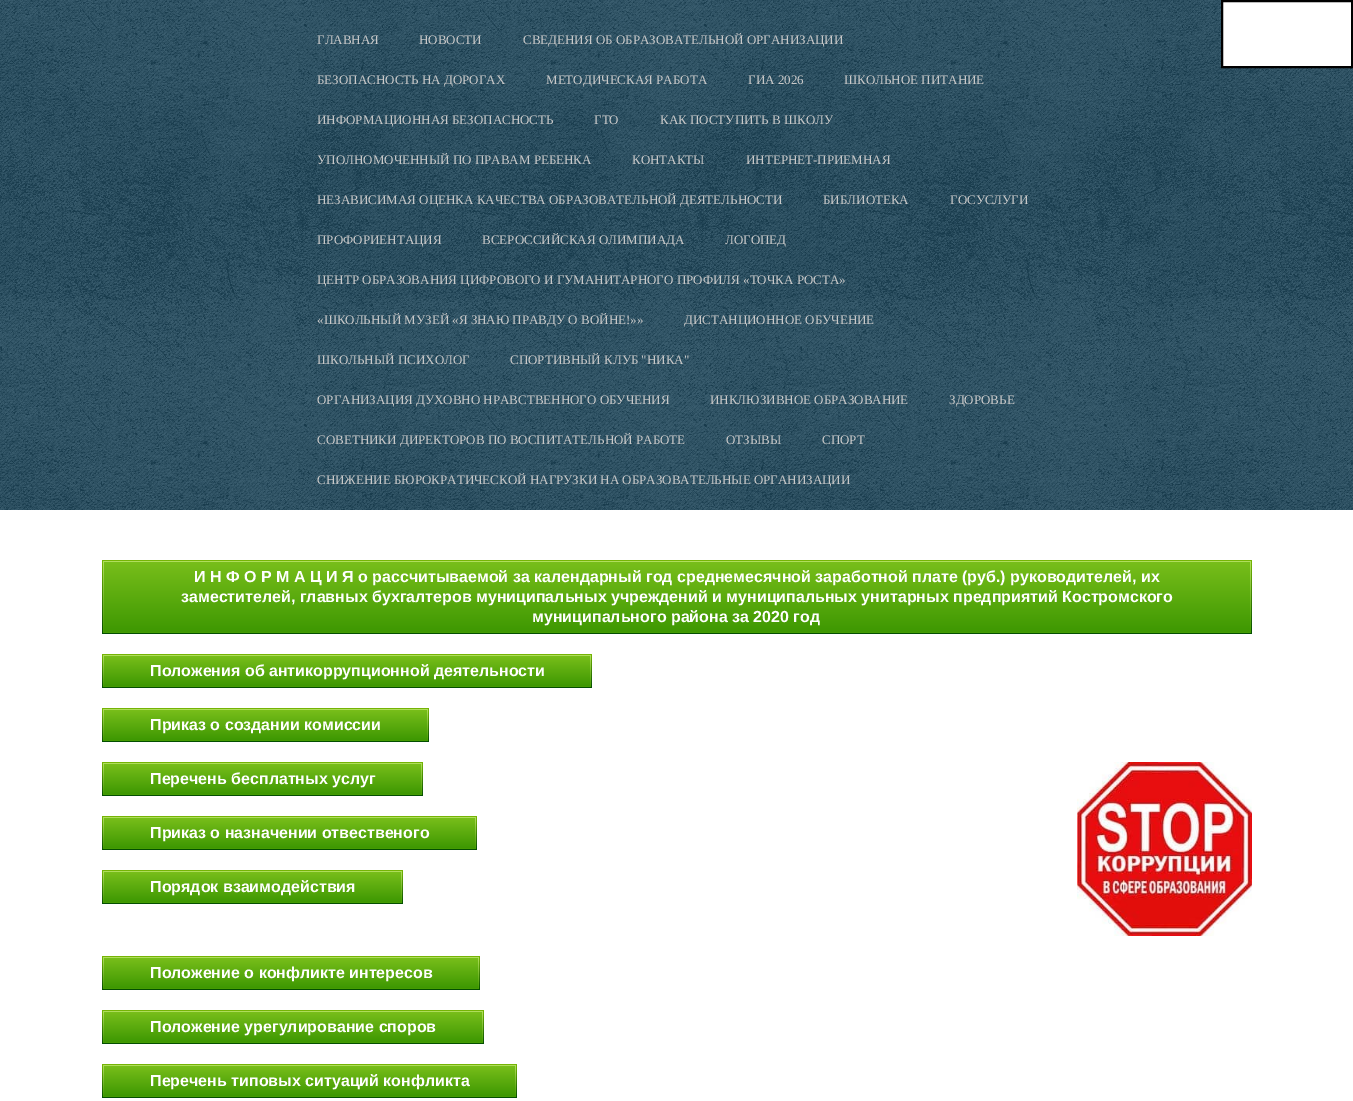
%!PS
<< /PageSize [1353 1101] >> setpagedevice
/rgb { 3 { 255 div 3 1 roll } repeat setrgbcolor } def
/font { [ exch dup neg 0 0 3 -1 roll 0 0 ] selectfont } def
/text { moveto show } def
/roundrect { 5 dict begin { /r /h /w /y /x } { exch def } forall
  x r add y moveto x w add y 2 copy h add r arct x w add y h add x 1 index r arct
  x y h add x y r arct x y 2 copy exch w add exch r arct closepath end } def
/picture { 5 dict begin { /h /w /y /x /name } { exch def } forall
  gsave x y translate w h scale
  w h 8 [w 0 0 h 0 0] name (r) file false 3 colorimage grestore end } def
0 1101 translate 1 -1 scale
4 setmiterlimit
29 69 89 rgb
0 0 1353 1101 rectfill
(img_01.rgb) 0 0 1353 510 picture
255 255 255 rgb
0 510 1353 591 rectfill
gsave 102 560 1150 74 3 roundrect clip newpath
<< /ShadingType 2 /ColorSpace /DeviceRGB /Coords [677 560 677 634] /Extend [true true] /Function << /FunctionType 2 /Domain [0 1] /C0 [0.467 0.714 0.024] /C1 [0.012 0.31 0.004] /N 1 >> >> shfill grestore
gsave 103 561 1148 72 3 roundrect clip newpath
<< /ShadingType 2 /ColorSpace /DeviceRGB /Coords [677 561 677 633] /Extend [true true] /Function << /FunctionType 2 /Domain [0 1] /C0 [0.694 0.875 0.365] /C1 [0.271 0.608 0.008] /N 1 >> >> shfill grestore
gsave 104 562 1146 70 3 roundrect clip newpath
<< /ShadingType 2 /ColorSpace /DeviceRGB /Coords [677 562 677 632] /Extend [true true] /Function << /FunctionType 2 /Domain [0 1] /C0 [0.471 0.745 0.102] /C1 [0.243 0.596 0.008] /N 1 >> >> shfill grestore
gsave 102 654 490 34 3 roundrect clip newpath
<< /ShadingType 2 /ColorSpace /DeviceRGB /Coords [347 654 347 688] /Extend [true true] /Function << /FunctionType 2 /Domain [0 1] /C0 [0.467 0.714 0.024] /C1 [0.012 0.31 0.004] /N 1 >> >> shfill grestore
gsave 103 655 488 32 3 roundrect clip newpath
<< /ShadingType 2 /ColorSpace /DeviceRGB /Coords [347 655 347 687] /Extend [true true] /Function << /FunctionType 2 /Domain [0 1] /C0 [0.694 0.875 0.365] /C1 [0.271 0.608 0.008] /N 1 >> >> shfill grestore
gsave 104 656 486 30 3 roundrect clip newpath
<< /ShadingType 2 /ColorSpace /DeviceRGB /Coords [347 656 347 686] /Extend [true true] /Function << /FunctionType 2 /Domain [0 1] /C0 [0.471 0.745 0.102] /C1 [0.243 0.596 0.008] /N 1 >> >> shfill grestore
gsave 102 708 327 34 3 roundrect clip newpath
<< /ShadingType 2 /ColorSpace /DeviceRGB /Coords [266 708 266 742] /Extend [true true] /Function << /FunctionType 2 /Domain [0 1] /C0 [0.467 0.714 0.024] /C1 [0.012 0.31 0.004] /N 1 >> >> shfill grestore
gsave 103 709 325 32 3 roundrect clip newpath
<< /ShadingType 2 /ColorSpace /DeviceRGB /Coords [266 709 266 741] /Extend [true true] /Function << /FunctionType 2 /Domain [0 1] /C0 [0.694 0.875 0.365] /C1 [0.271 0.608 0.008] /N 1 >> >> shfill grestore
gsave 104 710 323 30 3 roundrect clip newpath
<< /ShadingType 2 /ColorSpace /DeviceRGB /Coords [266 710 266 740] /Extend [true true] /Function << /FunctionType 2 /Domain [0 1] /C0 [0.471 0.745 0.102] /C1 [0.243 0.596 0.008] /N 1 >> >> shfill grestore
gsave 102 762 321 34 3 roundrect clip newpath
<< /ShadingType 2 /ColorSpace /DeviceRGB /Coords [263 762 263 796] /Extend [true true] /Function << /FunctionType 2 /Domain [0 1] /C0 [0.467 0.714 0.024] /C1 [0.012 0.31 0.004] /N 1 >> >> shfill grestore
gsave 103 763 319 32 3 roundrect clip newpath
<< /ShadingType 2 /ColorSpace /DeviceRGB /Coords [263 763 263 795] /Extend [true true] /Function << /FunctionType 2 /Domain [0 1] /C0 [0.694 0.875 0.365] /C1 [0.271 0.608 0.008] /N 1 >> >> shfill grestore
gsave 104 764 317 30 3 roundrect clip newpath
<< /ShadingType 2 /ColorSpace /DeviceRGB /Coords [263 764 263 794] /Extend [true true] /Function << /FunctionType 2 /Domain [0 1] /C0 [0.471 0.745 0.102] /C1 [0.243 0.596 0.008] /N 1 >> >> shfill grestore
gsave 102 816 375 34 3 roundrect clip newpath
<< /ShadingType 2 /ColorSpace /DeviceRGB /Coords [290 816 290 850] /Extend [true true] /Function << /FunctionType 2 /Domain [0 1] /C0 [0.467 0.714 0.024] /C1 [0.012 0.31 0.004] /N 1 >> >> shfill grestore
gsave 103 817 373 32 3 roundrect clip newpath
<< /ShadingType 2 /ColorSpace /DeviceRGB /Coords [290 817 290 849] /Extend [true true] /Function << /FunctionType 2 /Domain [0 1] /C0 [0.694 0.875 0.365] /C1 [0.271 0.608 0.008] /N 1 >> >> shfill grestore
gsave 104 818 371 30 3 roundrect clip newpath
<< /ShadingType 2 /ColorSpace /DeviceRGB /Coords [290 818 290 848] /Extend [true true] /Function << /FunctionType 2 /Domain [0 1] /C0 [0.471 0.745 0.102] /C1 [0.243 0.596 0.008] /N 1 >> >> shfill grestore
gsave 102 870 301 34 3 roundrect clip newpath
<< /ShadingType 2 /ColorSpace /DeviceRGB /Coords [253 870 253 904] /Extend [true true] /Function << /FunctionType 2 /Domain [0 1] /C0 [0.467 0.714 0.024] /C1 [0.012 0.31 0.004] /N 1 >> >> shfill grestore
gsave 103 871 299 32 3 roundrect clip newpath
<< /ShadingType 2 /ColorSpace /DeviceRGB /Coords [253 871 253 903] /Extend [true true] /Function << /FunctionType 2 /Domain [0 1] /C0 [0.694 0.875 0.365] /C1 [0.271 0.608 0.008] /N 1 >> >> shfill grestore
gsave 104 872 297 30 3 roundrect clip newpath
<< /ShadingType 2 /ColorSpace /DeviceRGB /Coords [253 872 253 902] /Extend [true true] /Function << /FunctionType 2 /Domain [0 1] /C0 [0.471 0.745 0.102] /C1 [0.243 0.596 0.008] /N 1 >> >> shfill grestore
(img_02.rgb) 1077 762 175 174 picture
gsave 102 956 378 34 3 roundrect clip newpath
<< /ShadingType 2 /ColorSpace /DeviceRGB /Coords [291 956 291 990] /Extend [true true] /Function << /FunctionType 2 /Domain [0 1] /C0 [0.467 0.714 0.024] /C1 [0.012 0.31 0.004] /N 1 >> >> shfill grestore
gsave 103 957 376 32 3 roundrect clip newpath
<< /ShadingType 2 /ColorSpace /DeviceRGB /Coords [291 957 291 989] /Extend [true true] /Function << /FunctionType 2 /Domain [0 1] /C0 [0.694 0.875 0.365] /C1 [0.271 0.608 0.008] /N 1 >> >> shfill grestore
gsave 104 958 374 30 3 roundrect clip newpath
<< /ShadingType 2 /ColorSpace /DeviceRGB /Coords [291 958 291 988] /Extend [true true] /Function << /FunctionType 2 /Domain [0 1] /C0 [0.471 0.745 0.102] /C1 [0.243 0.596 0.008] /N 1 >> >> shfill grestore
gsave 102 1010 382 34 3 roundrect clip newpath
<< /ShadingType 2 /ColorSpace /DeviceRGB /Coords [293 1010 293 1044] /Extend [true true] /Function << /FunctionType 2 /Domain [0 1] /C0 [0.467 0.714 0.024] /C1 [0.012 0.31 0.004] /N 1 >> >> shfill grestore
gsave 103 1011 380 32 3 roundrect clip newpath
<< /ShadingType 2 /ColorSpace /DeviceRGB /Coords [293 1011 293 1043] /Extend [true true] /Function << /FunctionType 2 /Domain [0 1] /C0 [0.694 0.875 0.365] /C1 [0.271 0.608 0.008] /N 1 >> >> shfill grestore
gsave 104 1012 378 30 3 roundrect clip newpath
<< /ShadingType 2 /ColorSpace /DeviceRGB /Coords [293 1012 293 1042] /Extend [true true] /Function << /FunctionType 2 /Domain [0 1] /C0 [0.471 0.745 0.102] /C1 [0.243 0.596 0.008] /N 1 >> >> shfill grestore
gsave 102 1064 415 34 3 roundrect clip newpath
<< /ShadingType 2 /ColorSpace /DeviceRGB /Coords [310 1064 310 1098] /Extend [true true] /Function << /FunctionType 2 /Domain [0 1] /C0 [0.467 0.714 0.024] /C1 [0.012 0.31 0.004] /N 1 >> >> shfill grestore
gsave 103 1065 413 32 3 roundrect clip newpath
<< /ShadingType 2 /ColorSpace /DeviceRGB /Coords [310 1065 310 1097] /Extend [true true] /Function << /FunctionType 2 /Domain [0 1] /C0 [0.694 0.875 0.365] /C1 [0.271 0.608 0.008] /N 1 >> >> shfill grestore
gsave 104 1066 411 30 3 roundrect clip newpath
<< /ShadingType 2 /ColorSpace /DeviceRGB /Coords [310 1066 310 1096] /Extend [true true] /Function << /FunctionType 2 /Domain [0 1] /C0 [0.471 0.745 0.102] /C1 [0.243 0.596 0.008] /N 1 >> >> shfill grestore
1222 1 moveto 130 0 rlineto 0 66 rlineto -130 0 rlineto closepath gsave fill grestore
0 0 0 rgb
2 setlinewidth
stroke
/LiberationSerif-Regular 13 font
201 201 201 rgb
(ГЛАВНАЯ) 317 44 text
(НОВОСТИ) 419 44 text
(СВЕДЕНИЯ ОБ ОБРАЗОВАТЕЛЬНОЙ ОРГАНИЗАЦИИ) 523 44 text
(БЕЗОПАСНОСТЬ НА ДОРОГАХ) 317 84 text
(МЕТОДИЧЕСКАЯ РАБОТА) 546 84 text
(ГИА 2026) 748 84 text
(ШКОЛЬНОЕ ПИТАНИЕ) 844 84 text
(ИНФОРМАЦИОННАЯ БЕЗОПАСНОСТЬ) 317 124 text
(ГТО) 594 124 text
(КАК ПОСТУПИТЬ В ШКОЛУ) 660 124 text
(УПОЛНОМОЧЕННЫЙ ПО ПРАВАМ РЕБЕНКА) 317 164 text
(КОНТАКТЫ) 632 164 text
(ИНТЕРНЕТ-ПРИЕМНАЯ) 746 164 text
(НЕЗАВИСИМАЯ ОЦЕНКА КАЧЕСТВА ОБРАЗОВАТЕЛЬНОЙ ДЕЯТЕЛЬНОСТИ) 317 204 text
(БИБЛИОТЕКА) 823 204 text
(ГОСУСЛУГИ) 950 204 text
(ПРОФОРИЕНТАЦИЯ) 317 244 text
(ВСЕРОССИЙСКАЯ ОЛИМПИАДА) 482 244 text
(ЛОГОПЕД) 725 244 text
(ЦЕНТР ОБРАЗОВАНИЯ ЦИФРОВОГО И ГУМАНИТАРНОГО ПРОФИЛЯ «ТОЧКА РОСТА») 317 284 text
(«ШКОЛЬНЫЙ МУЗЕЙ «Я ЗНАЮ ПРАВДУ О ВОЙНЕ!»») 317 324 text
(ДИСТАНЦИОННОЕ ОБУЧЕНИЕ) 684 324 text
(ШКОЛЬНЫЙ ПСИХОЛОГ) 317 364 text
(СПОРТИВНЫЙ КЛУБ "НИКА") 510 364 text
(ОРГАНИЗАЦИЯ ДУХОВНО НРАВСТВЕННОГО ОБУЧЕНИЯ) 317 404 text
(ИНКЛЮЗИВНОЕ ОБРАЗОВАНИЕ) 710 404 text
(ЗДОРОВЬЕ) 949 404 text
(СОВЕТНИКИ ДИРЕКТОРОВ ПО ВОСПИТАТЕЛЬНОЙ РАБОТЕ) 317 444 text
(ОТЗЫВЫ) 726 444 text
(СПОРТ) 822 444 text
(СНИЖЕНИЕ БЮРОКРАТИЧЕСКОЙ НАГРУЗКИ НА ОБРАЗОВАТЕЛЬНЫЕ ОРГАНИЗАЦИИ) 317 484 text
/LiberationSans-Bold 16 font
255 255 255 rgb
(И Н Ф О Р М А Ц И Я о рассчитываемой за календарный год среднемесячной заработной плате \(руб.\) руководителей, их) 194 582 text
(заместителей, главных бухгалтеров муниципальных учреждений и муниципальных унитарных предприятий Костромского) 181 602 text
(муниципального района за 2020 год) 532 622 text
(Положения об антикоррупционной деятельности) 150 676 text
(Приказ о создании комиссии) 150 730 text
(Перечень бесплатных услуг) 150 784 text
(Приказ о назначении отвественого) 150 838 text
(Порядок взаимодействия) 150 892 text
(Положение о конфликте интересов) 150 978 text
(Положение урегулирование споров) 150 1032 text
(Перечень типовых ситуаций конфликта) 150 1086 text
showpage
